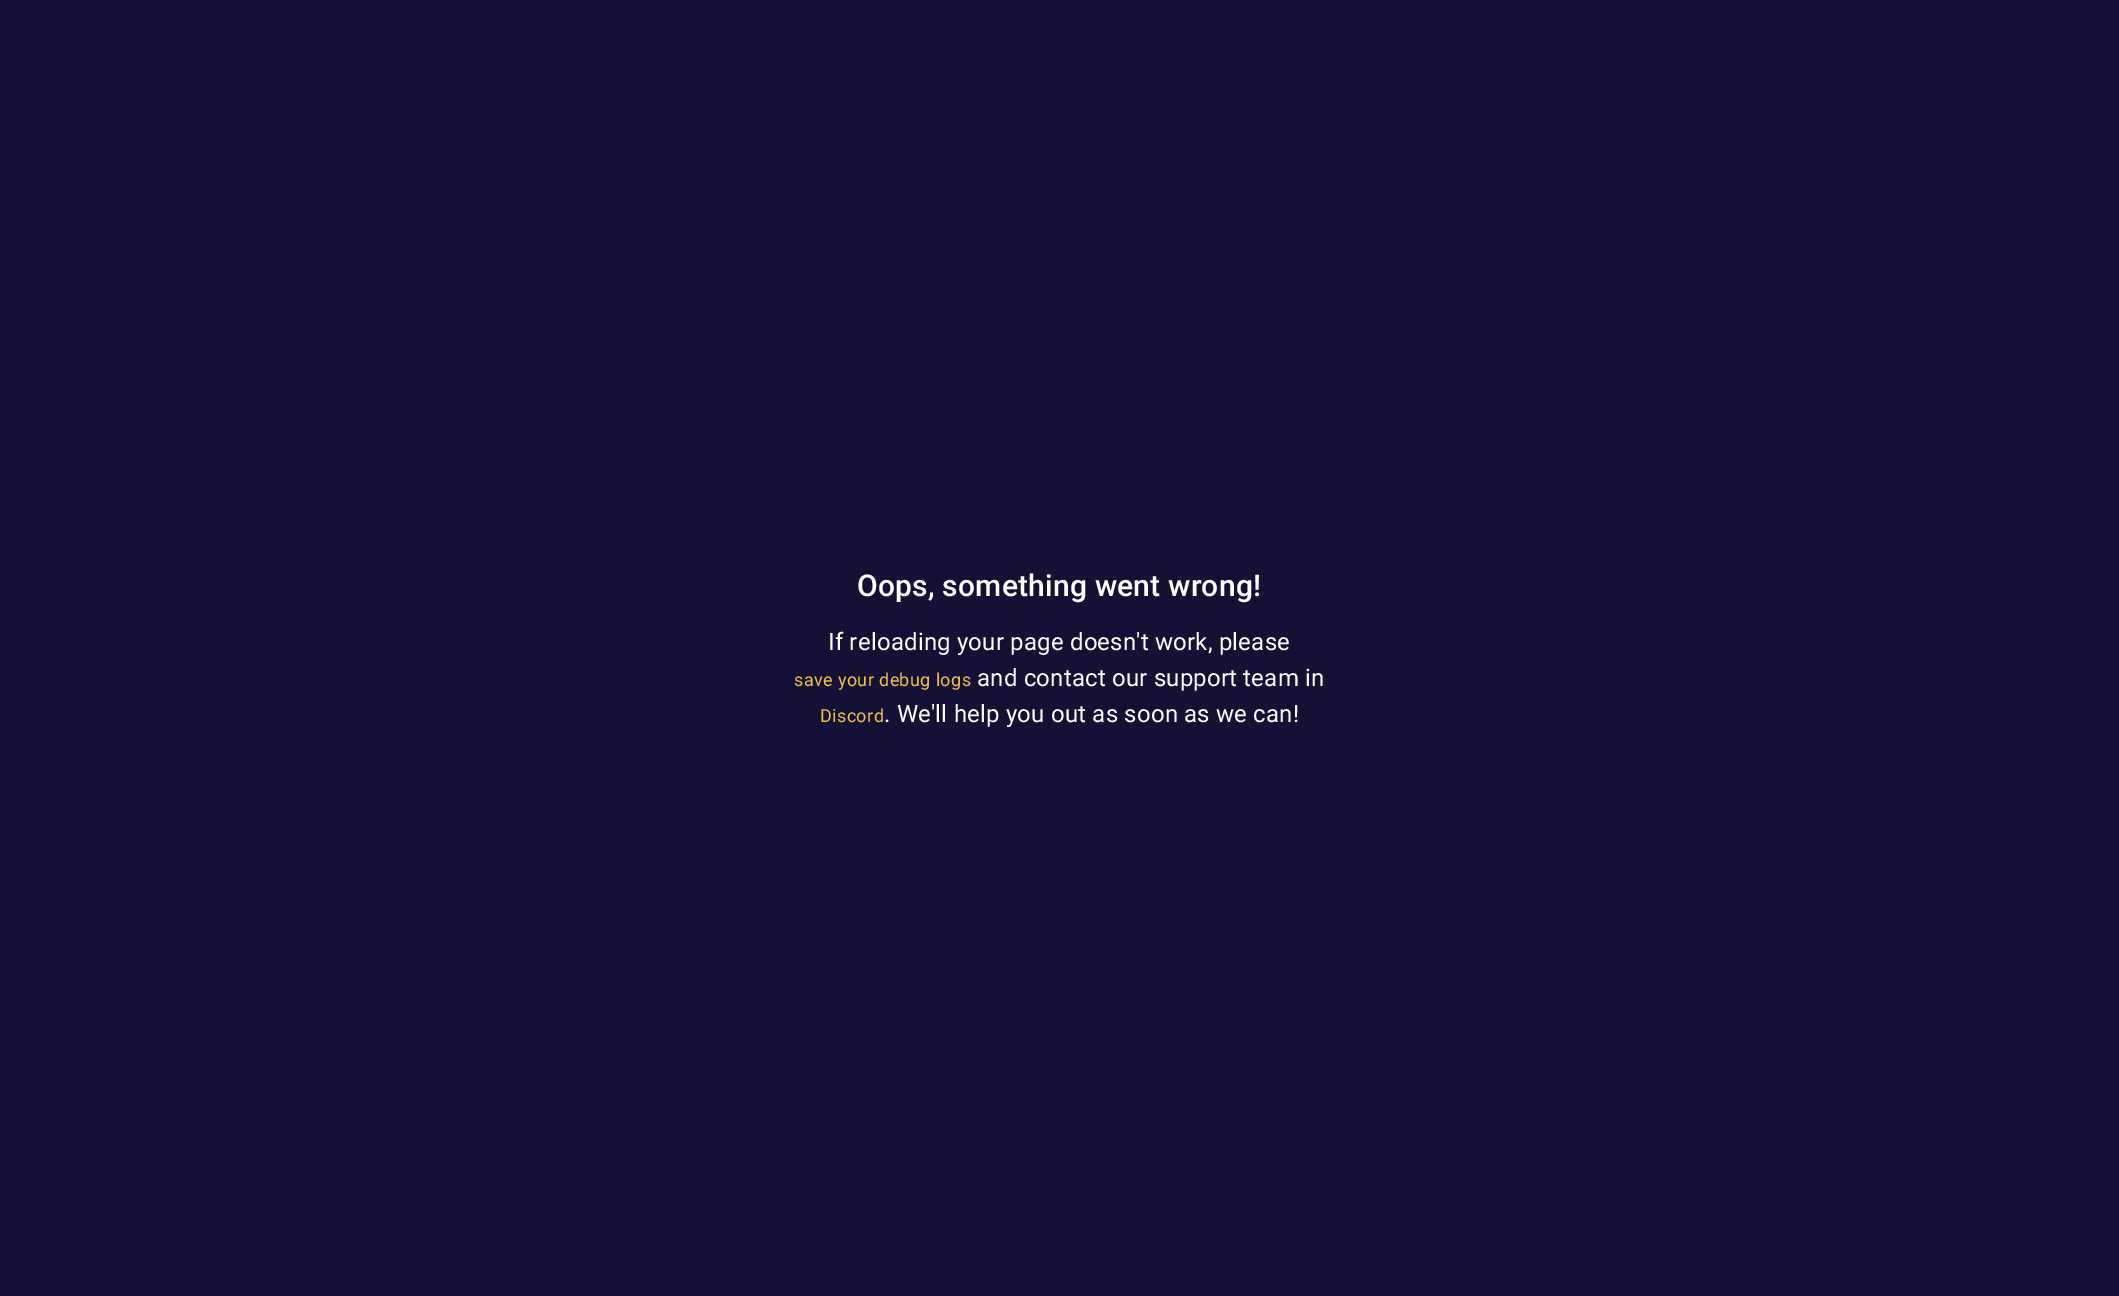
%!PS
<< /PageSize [2119 1296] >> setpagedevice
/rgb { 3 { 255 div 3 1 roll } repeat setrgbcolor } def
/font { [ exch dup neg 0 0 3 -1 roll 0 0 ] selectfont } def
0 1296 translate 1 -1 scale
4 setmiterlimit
21 17 54 rgb
0 0 2119 1296 rectfill
/Roboto-Medium 30 font
255 255 255 rgb
857 596 moveto 0.2 0 (Oops, something went wrong!) ashow
/Roboto-Regular 24 font
828 650 moveto 0.2 0 (If reloading your page doesn't work, please) ashow
/Roboto-Regular 18 font
242 191 67 rgb
794 686 moveto 0.4 0 (save your debug logs) ashow
/Roboto-Regular 24 font
255 255 255 rgb
977 686 moveto 0.2 0 (and contact our support team in) ashow
/Roboto-Regular 18 font
242 191 67 rgb
820 722 moveto 0.4 0 (Discord) ashow
/Roboto-Regular 24 font
255 255 255 rgb
884 722 moveto 0.2 0 (. We'll help you out as soon as we can!) ashow
showpage
